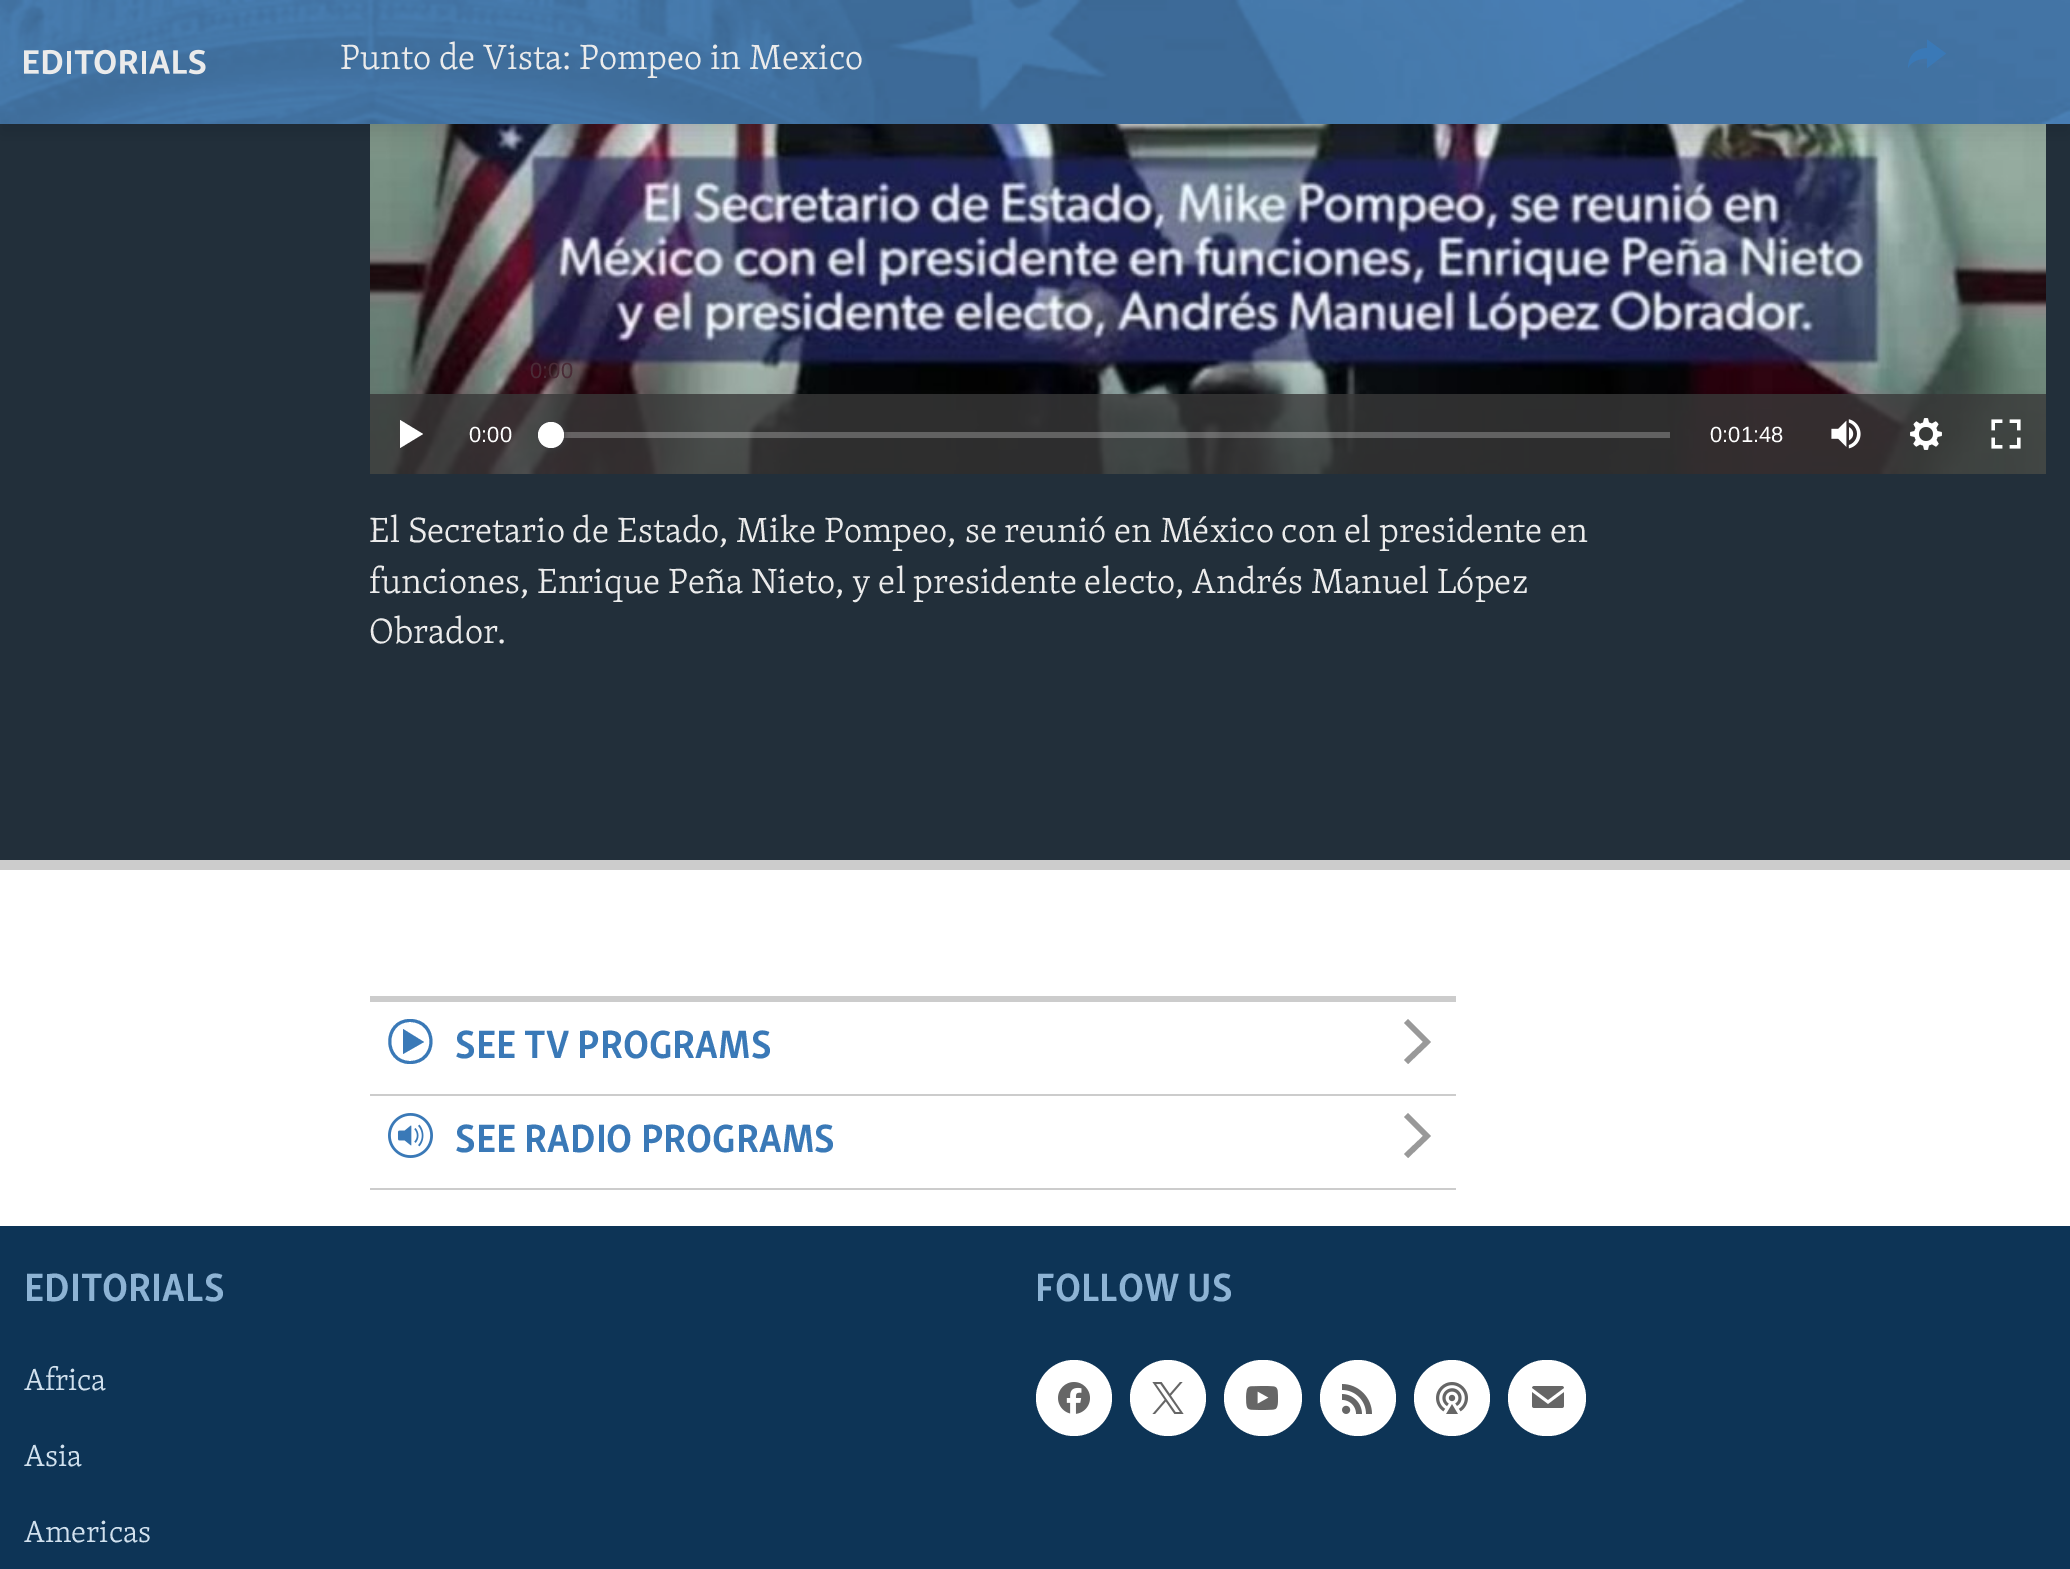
%!PS
<< /PageSize [2070 1569] /PageUsesTransparency true >> setpagedevice
/rgb { 3 { 255 div 3 1 roll } repeat setrgbcolor } def
/font { [ exch dup neg 0 0 3 -1 roll 0 0 ] selectfont } def
/text { moveto show } def
/alpha { dup .setfillconstantalpha .setstrokeconstantalpha } def
/circle { newpath 0 360 arc closepath } def
/roundrect { 5 dict begin { /r /h /w /y /x } { exch def } forall
  x r add y moveto x w add y 2 copy h add r arct x w add y h add x 1 index r arct
  x y h add x y r arct x y 2 copy exch w add exch r arct closepath end } def
/shadow { 12 dict begin { /a /b /q /h /w /y /x } { exch def } forall gsave /was 0 def
  9 -2 -9 { dup b mul 4 div /e exch def 1 sub .425 mul 2.718 exch exp 1 add a .99 .min exch div /now exch def
    1 1 now sub 1 was sub div sub alpha /was now def
    w h .min e 2 mul add 0 gt { x e sub y e sub w e 2 mul add h e 2 mul add
      q e add b .6 mul add w h .min 2 div e add .min 0 .max roundrect fill } if } for grestore end } def
/picture { 5 dict begin { /h /w /y /x /name } { exch def } forall
  gsave x y translate w h scale
  w h 8 [w 0 0 h 0 0] name (r) file false 3 colorimage grestore end } def
0 .pushpdf14devicefilter
0 1569 translate 1 -1 scale
4 setmiterlimit
255 255 255 rgb
0 0 2070 1569 rectfill
34 47 58 rgb
0 124 2070 736 rectfill
(img_03.rgb) 370 124 1676 350 picture
0 0 0 rgb
0 10 2070 124 0 10 0.1 shadow
(img_01.rgb) 0 0 2070 124 picture
(img_02.rgb) 24 49 182 26 picture
58 121 183 rgb
1908 68 moveto 0.5 -12 7 -19.5 19 -20 rcurveto 0 -8.5 rlineto 19 14 rlineto -19 14.5 rlineto 0 -9.5 rlineto -7 0 -16 2.5 -19 9.5 rcurveto closepath fill
204 204 204 rgb
0 860 2070 10 rectfill
0.8 alpha
56 56 56 rgb
370 394 1676 80 rectfill
1 alpha
255 255 255 rgb
400 448 moveto 23 -14 rlineto -23 -14 rlineto closepath fill
0.25 alpha
563 432 1107 6 rectfill
1 alpha
65 65 68 rgb
538 422 26 26 13 3 1 shadow
255 255 255 rgb
551 435 13 circle fill
(img_04.rgb) 1831 419 30 30 picture
(img_05.rgb) 1910 418 32 32 picture
(img_06.rgb) 1991 419 30 30 picture
204 204 204 rgb
370 996 1086 6 rectfill
370 1094 1086 2 rectfill
58 121 183 rgb
403 1054 moveto 21 -12 rlineto -21 -13 rlineto closepath 410 1022 moveto 26 0 26 39 0 39 rcurveto -25 0 -25 -39 0 -39 rcurveto closepath 410 1019 moveto -29 0 -29 45 0 45 rcurveto 30 0 30 -45 0 -45 rcurveto closepath fill
153 153 153 rgb
1408 1064 moveto 23 -22 rlineto -23 -23 rlineto -4 4 rlineto 19 19 rlineto -19 18 rlineto closepath fill
204 204 204 rgb
370 1188 1086 2 rectfill
(img_07.rgb) 388 1113 45 45 picture
153 153 153 rgb
1408 1158 moveto 23 -22 rlineto -23 -23 rlineto -4 4 rlineto 19 19 rlineto -19 18 rlineto closepath fill
13 52 86 rgb
0 1226 2070 343 rectfill
255 255 255 rgb
1074 1398 38 circle fill
(img_08.rgb) 1058 1382 32 32 picture
1168 1398 38 circle fill
(img_09.rgb) 1152 1382 32 32 picture
1224 1360 78 76 38 roundrect fill
(img_10.rgb) 1246 1386 32 24 picture
1358 1398 38 circle fill
(img_11.rgb) 1342 1384 30 30 picture
1452 1398 38 circle fill
(img_12.rgb) 1436 1382 32 32 picture
1508 1360 78 76 38 roundrect fill
(img_13.rgb) 1532 1386 32 22 picture
/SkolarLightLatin-Light 36 font
235 235 235 rgb
(Punto de Vista: Pompeo in Mexico) 340 69 text
/LiberationSans-Regular 22 font
73 43 54 rgb
(0:00) 530 378 text
255 255 255 rgb
(0:00) 469 442 text
(0:01:48) 1710 442 text
/SkolarLightLatin-Light 36 font
235 235 235 rgb
(El Secretario de Estado, Mike Pompeo, se reunió en México con el presidente en) 369 542 text
(funciones, Enrique Peña Nieto, y el presidente electo, Andrés Manuel López) 369 593 text
(Obrador.) 369 643 text
/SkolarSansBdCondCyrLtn-Bold 40.5 font
58 121 183 rgb
(SEE TV PROGRAMS) 455 1058 text
(SEE RADIO PROGRAMS) 455 1152 text
141 179 212 rgb
(EDITORIALS) 24 1301 text
/SkolarLightLatin-Light 31.5 font
209 225 238 rgb
(Africa) 24 1390 text
(Asia) 24 1466 text
(Americas) 24 1542 text
/SkolarSansBdCondCyrLtn-Bold 40.5 font
141 179 212 rgb
(FOLLOW US) 1035 1301 text
.poppdf14devicefilter showpage
